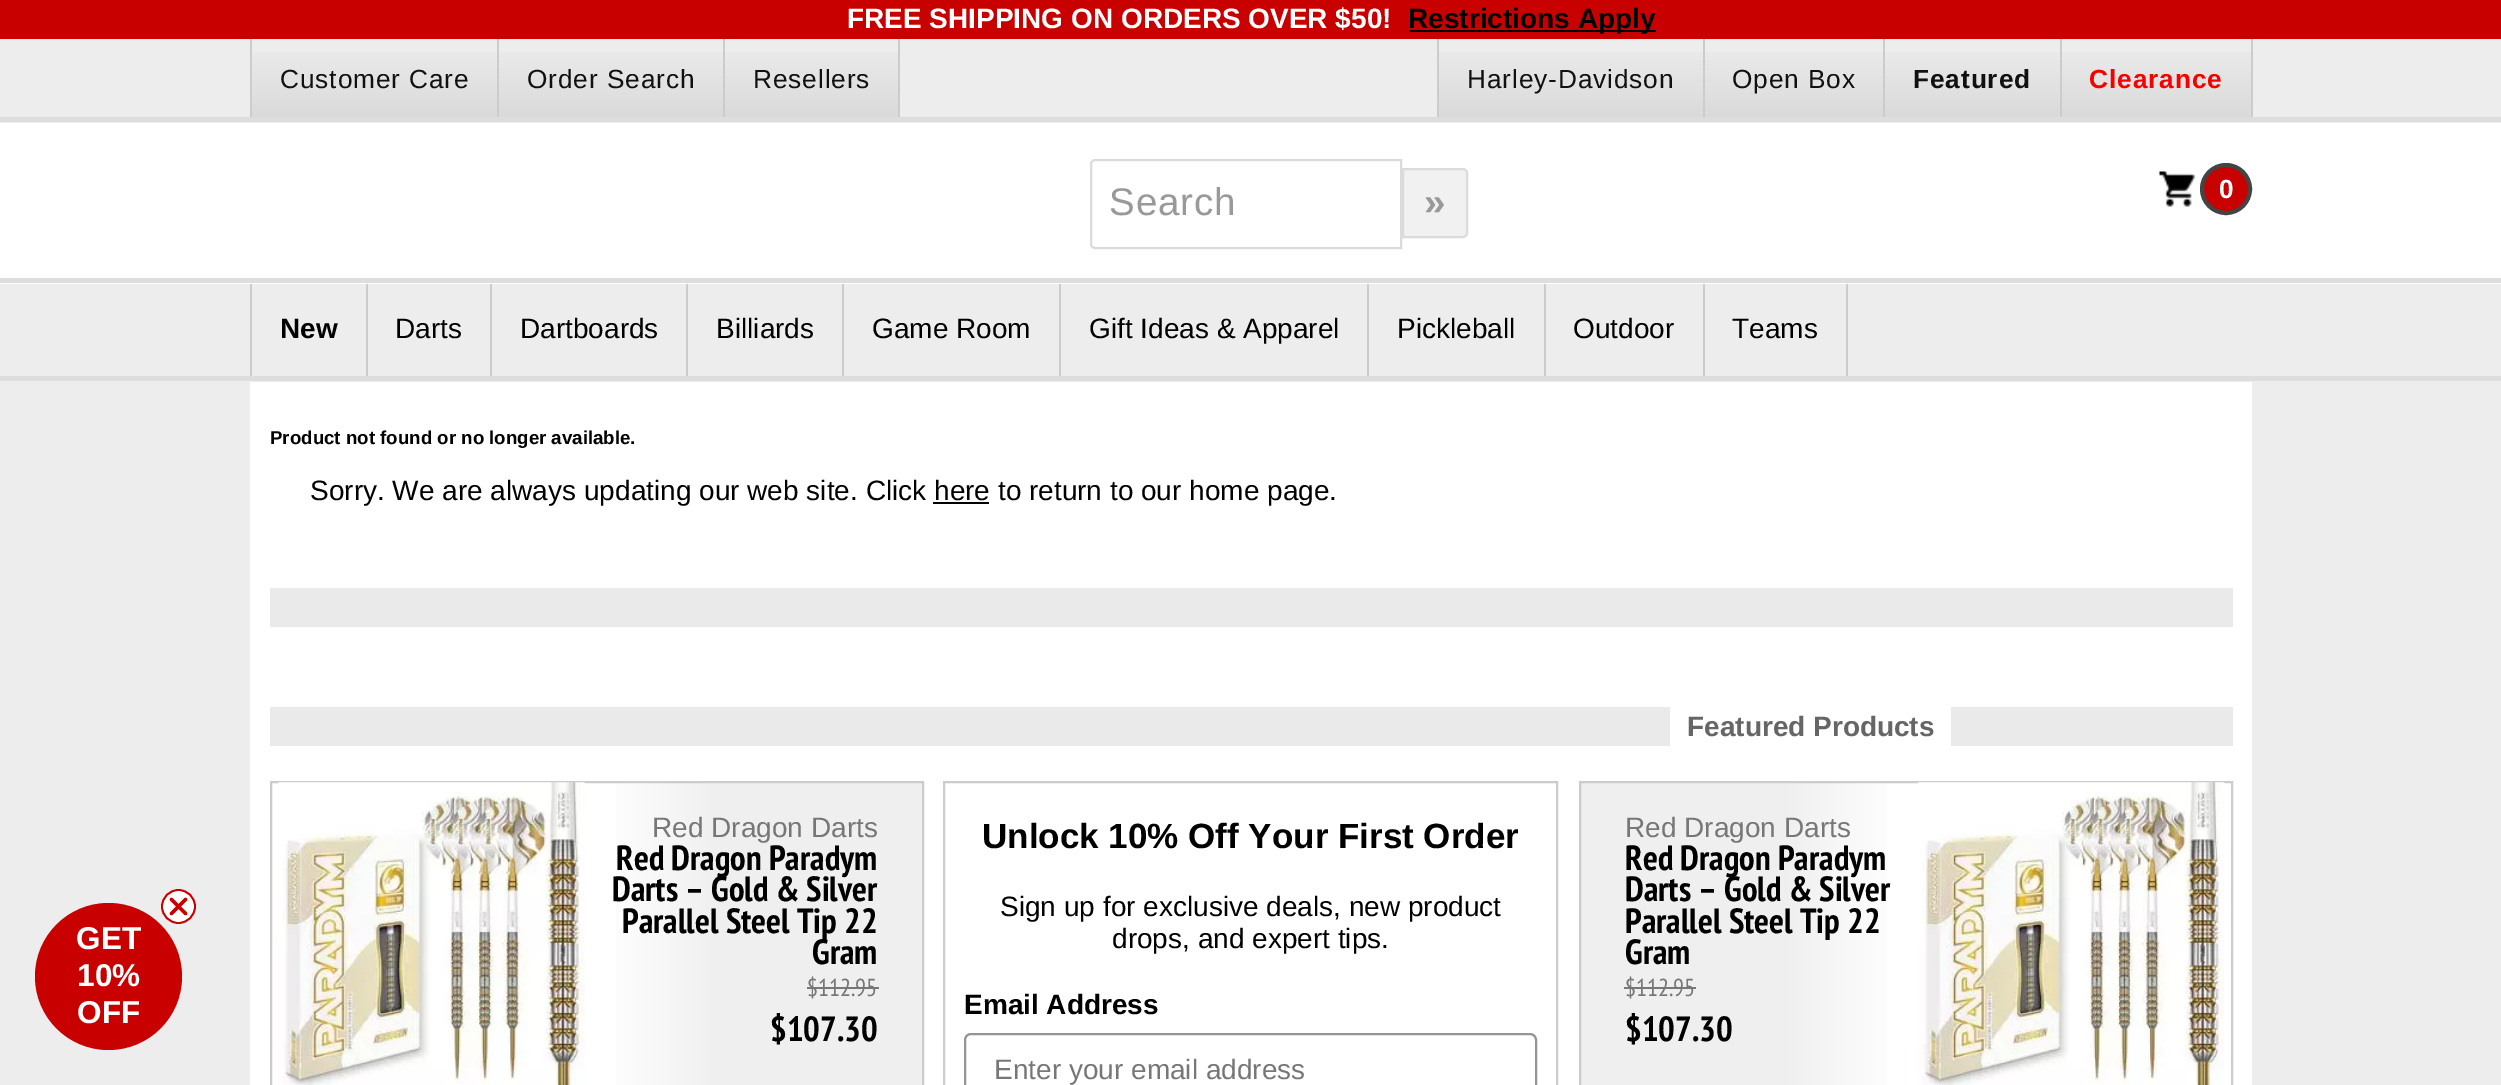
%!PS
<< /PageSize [2501 1085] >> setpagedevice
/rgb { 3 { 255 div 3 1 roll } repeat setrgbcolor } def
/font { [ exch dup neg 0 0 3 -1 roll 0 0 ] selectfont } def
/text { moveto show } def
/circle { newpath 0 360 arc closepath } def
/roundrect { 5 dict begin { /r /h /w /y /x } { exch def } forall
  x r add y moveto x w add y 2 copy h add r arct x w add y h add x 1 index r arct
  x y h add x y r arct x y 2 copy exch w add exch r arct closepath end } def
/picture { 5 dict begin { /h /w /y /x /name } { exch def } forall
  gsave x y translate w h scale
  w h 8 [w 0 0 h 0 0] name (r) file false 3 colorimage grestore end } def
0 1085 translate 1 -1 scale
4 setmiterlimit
237 237 237 rgb
0 0 2501 1085 rectfill
201 0 0 rgb
108.5 976.5 73.5 circle fill
255 255 255 rgb
178.5 906.5 16.5 circle gsave fill grestore
201 0 0 rgb
1.8 setlinewidth
stroke
3.5 setlinewidth
1 setlinecap
1 setlinejoin
171.5 899.5 moveto 14 14 rlineto 171.5 913.5 moveto 14 -14 rlineto closepath stroke
0 0 2501 39 rectfill
0 0 0 rgb
1409 30 247 2 rectfill
221 221 221 rgb
0 117 2501 5 rectfill
204 204 204 rgb
250 39 2 78 rectfill
gsave 252 52 moveto 245 0 rlineto 0 65 rlineto -245 0 rlineto closepath clip newpath
<< /ShadingType 2 /ColorSpace /DeviceRGB /Coords [375 38 375 117] /Extend [true true] /Function << /FunctionType 2 /Domain [0 1] /C0 [0.933 0.933 0.933] /C1 [0.855 0.855 0.855] /N 1 >> >> shfill grestore
497 39 2 78 rectfill
gsave 499 52 moveto 224 0 rlineto 0 65 rlineto -224 0 rlineto closepath clip newpath
<< /ShadingType 2 /ColorSpace /DeviceRGB /Coords [611 38 611 117] /Extend [true true] /Function << /FunctionType 2 /Domain [0 1] /C0 [0.933 0.933 0.933] /C1 [0.855 0.855 0.855] /N 1 >> >> shfill grestore
723 39 2 78 rectfill
gsave 725 52 moveto 173 0 rlineto 0 65 rlineto -173 0 rlineto closepath clip newpath
<< /ShadingType 2 /ColorSpace /DeviceRGB /Coords [811 38 811 117] /Extend [true true] /Function << /FunctionType 2 /Domain [0 1] /C0 [0.933 0.933 0.933] /C1 [0.855 0.855 0.855] /N 1 >> >> shfill grestore
898 39 2 78 rectfill
gsave 1439 52 moveto 264 0 rlineto 0 65 rlineto -264 0 rlineto closepath clip newpath
<< /ShadingType 2 /ColorSpace /DeviceRGB /Coords [1571 38 1571 117] /Extend [true true] /Function << /FunctionType 2 /Domain [0 1] /C0 [0.933 0.933 0.933] /C1 [0.855 0.855 0.855] /N 1 >> >> shfill grestore
1437 39 2 78 rectfill
gsave 1705 52 moveto 178 0 rlineto 0 65 rlineto -178 0 rlineto closepath clip newpath
<< /ShadingType 2 /ColorSpace /DeviceRGB /Coords [1794 38 1794 117] /Extend [true true] /Function << /FunctionType 2 /Domain [0 1] /C0 [0.933 0.933 0.933] /C1 [0.855 0.855 0.855] /N 1 >> >> shfill grestore
1703 39 2 78 rectfill
gsave 1885 52 moveto 175 0 rlineto 0 65 rlineto -175 0 rlineto closepath clip newpath
<< /ShadingType 2 /ColorSpace /DeviceRGB /Coords [1972 38 1972 117] /Extend [true true] /Function << /FunctionType 2 /Domain [0 1] /C0 [0.933 0.933 0.933] /C1 [0.855 0.855 0.855] /N 1 >> >> shfill grestore
1883 39 2 78 rectfill
2251 39 2 78 rectfill
gsave 2062 52 moveto 189 0 rlineto 0 65 rlineto -189 0 rlineto closepath clip newpath
<< /ShadingType 2 /ColorSpace /DeviceRGB /Coords [2156 38 2156 117] /Extend [true true] /Function << /FunctionType 2 /Domain [0 1] /C0 [0.933 0.933 0.933] /C1 [0.855 0.855 0.855] /N 1 >> >> shfill grestore
2060 39 2 78 rectfill
255 255 255 rgb
0 123 2501 161 rectfill
221 221 221 rgb
0 278 2501 5 rectfill
219 219 219 rgb
2 setlinewidth
0 setlinecap
0 setlinejoin
1095 160 moveto 306 0 rlineto 0 88 rlineto -306 0 rlineto -2 0 -4 -2 -4 -4 rcurveto 0 -80 rlineto 0 -2 2 -4 4 -4 rcurveto closepath stroke
241 241 241 rgb
1403 169 moveto 60 0 rlineto 2 0 4 2 4 4 rcurveto 0 60 rlineto 0 2 -2 4 -4 4 rcurveto -60 0 rlineto closepath gsave fill grestore
219 219 219 rgb
stroke
(img_01.rgb) 2159 171 36 36 picture
201 0 0 rgb
2226 189 24 circle gsave fill grestore
68 68 68 rgb
4 setlinewidth
stroke
221 221 221 rgb
0 376 2501 5 rectfill
204 204 204 rgb
366 284 2 92 rectfill
250 284 2 92 rectfill
490 284 2 92 rectfill
686 284 2 92 rectfill
842 284 2 92 rectfill
1059 284 2 92 rectfill
1367 284 2 92 rectfill
1544 284 2 92 rectfill
1703 284 2 92 rectfill
1846 284 2 92 rectfill
255 255 255 rgb
250 382 2002 703 rectfill
0 0 0 rgb
933 502 56 2 rectfill
234 234 234 rgb
270 588 1963 39 rectfill
270 707 1963 39 rectfill
255 255 255 rgb
1670 707 281 39 rectfill
gsave 616 783 moveto 306 0 rlineto 0 302 rlineto -306 0 rlineto closepath clip newpath
<< /ShadingType 2 /ColorSpace /DeviceRGB /Coords [270 935 924 935] /Extend [true true] /Function << /FunctionType 3 /Domain [0 1] /Functions [<< /FunctionType 2 /Domain [0 1] /C0 [1 1 1] /C1 [1 1 1] /N 1 >> << /FunctionType 2 /Domain [0 1] /C0 [1 1 1] /C1 [0.937 0.937 0.937] /N 1 >> << /FunctionType 2 /Domain [0 1] /C0 [0.937 0.937 0.937] /C1 [0.937 0.937 0.937] /N 1 >>] /Bounds [0.5 0.69] /Encode [0 1 0 1 0 1] >> >> shfill grestore
204 204 204 rgb
2 setlinewidth
271 782 652 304 rectstroke
(img_02.rgb) 278 782 307 303 picture
119 119 119 rgb
807 987 72 2 rectfill
204 204 204 rgb
944 782 613 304 rectstroke
148 149 150 rgb
965 1034 571 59 6 roundrect stroke
gsave 1581 783 moveto 306 0 rlineto 0 302 rlineto -306 0 rlineto closepath clip newpath
<< /ShadingType 2 /ColorSpace /DeviceRGB /Coords [1579 935 2233 935] /Extend [true true] /Function << /FunctionType 3 /Domain [0 1] /Functions [<< /FunctionType 2 /Domain [0 1] /C0 [0.937 0.937 0.937] /C1 [0.937 0.937 0.937] /N 1 >> << /FunctionType 2 /Domain [0 1] /C0 [0.937 0.937 0.937] /C1 [1 1 1] /N 1 >> << /FunctionType 2 /Domain [0 1] /C0 [1 1 1] /C1 [1 1 1] /N 1 >>] /Bounds [0.31 0.5] /Encode [0 1 0 1 0 1] >> >> shfill grestore
204 204 204 rgb
1580 782 652 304 rectstroke
(img_03.rgb) 1918 782 307 303 picture
119 119 119 rgb
1624 987 72 2 rectfill
/LiberationSans-Bold 31.5 font
255 255 255 rgb
(GET) 76 949 text
(10%) 77 986 text
(OFF) 77 1023 text
/LiberationSans-Bold 28 font
(FREE SHIPPING ON ORDERS OVER $50!) 847 28 text
0 0 0 rgb
(Restrictions Apply) 1408 28 text
/LiberationSans-Regular 26.25 font
17 17 17 rgb
280 88 moveto 0.9 0 (Customer Care) ashow
527 88 moveto 0.9 0 (Order Search) ashow
753 88 moveto 0.9 0 (Resellers) ashow
1467 88 moveto 0.9 0 (Harley-Davidson) ashow
1732 88 moveto 0.9 0 (Open Box) ashow
/LiberationSans-Bold 26.25 font
1913 88 moveto 0.9 0 (Featured) ashow
246 0 0 rgb
2089 88 moveto 0.9 0 (Clearance) ashow
/LiberationSans-Regular 38.5 font
153 153 153 rgb
1109 215 moveto 0.9 0 (Search) ashow
/LiberationSans-Bold 38.5 font
(») 1424 215 text
/LiberationSans-Bold 26.25 font
255 255 255 rgb
(0) 2219 198 text
/LiberationSans-Bold 28 font
0 0 0 rgb
(New) 280 338 text
/LiberationSans-Regular 28 font
(Darts) 395 338 text
(Dartboards) 520 338 text
(Billiards) 716 338 text
(Game Room) 872 338 text
(Gift Ideas & Apparel) 1089 338 text
(Pickleball) 1397 338 text
(Outdoor) 1573 338 text
(Teams) 1732 338 text
/LiberationSans-Bold 18.7 font
(Product not found or no longer available.) 270 444 text
/LiberationSans-Regular 28 font
(Sorry. We are always updating our web site. Click here to return to our home page.) 310 500 text
/LiberationSans-Bold 28 font
102 102 102 rgb
(Featured Products) 1687 736 text
/LiberationSans-Regular 28 font
119 119 119 rgb
(Red Dragon Darts) 652 837 text
/PTSansNarrow-Bold 35 font
0 0 0 rgb
(Red Dragon Paradym) 616 870 text
(Darts – Gold & Silver) 612 901 text
(Parallel Steel Tip 22) 622 933 text
(Gram) 812 964 text
/PTSansNarrow-Regular 24.5 font
119 119 119 rgb
($112.95) 807 996 text
/PTSansNarrow-Bold 35 font
0 0 0 rgb
($107.30) 770 1041 text
/LiberationSans-Bold 35 font
(Unlock 10% Off Your First Order) 982 848 text
/LiberationSans-Regular 28 font
(Sign up for exclusive deals, new product) 1000 916 text
(drops, and expert tips.) 1112 948 text
/LiberationSans-Bold 28 font
(Email Address) 964 1014 text
/LiberationSans-Regular 28 font
119 119 119 rgb
(Enter your email address) 994 1079 text
(Red Dragon Darts) 1625 837 text
/PTSansNarrow-Bold 35 font
0 0 0 rgb
(Red Dragon Paradym) 1625 870 text
(Darts – Gold & Silver) 1625 901 text
(Parallel Steel Tip 22) 1625 933 text
(Gram) 1625 964 text
/PTSansNarrow-Regular 24.5 font
119 119 119 rgb
($112.95) 1625 996 text
/PTSansNarrow-Bold 35 font
0 0 0 rgb
($107.30) 1625 1041 text
showpage
